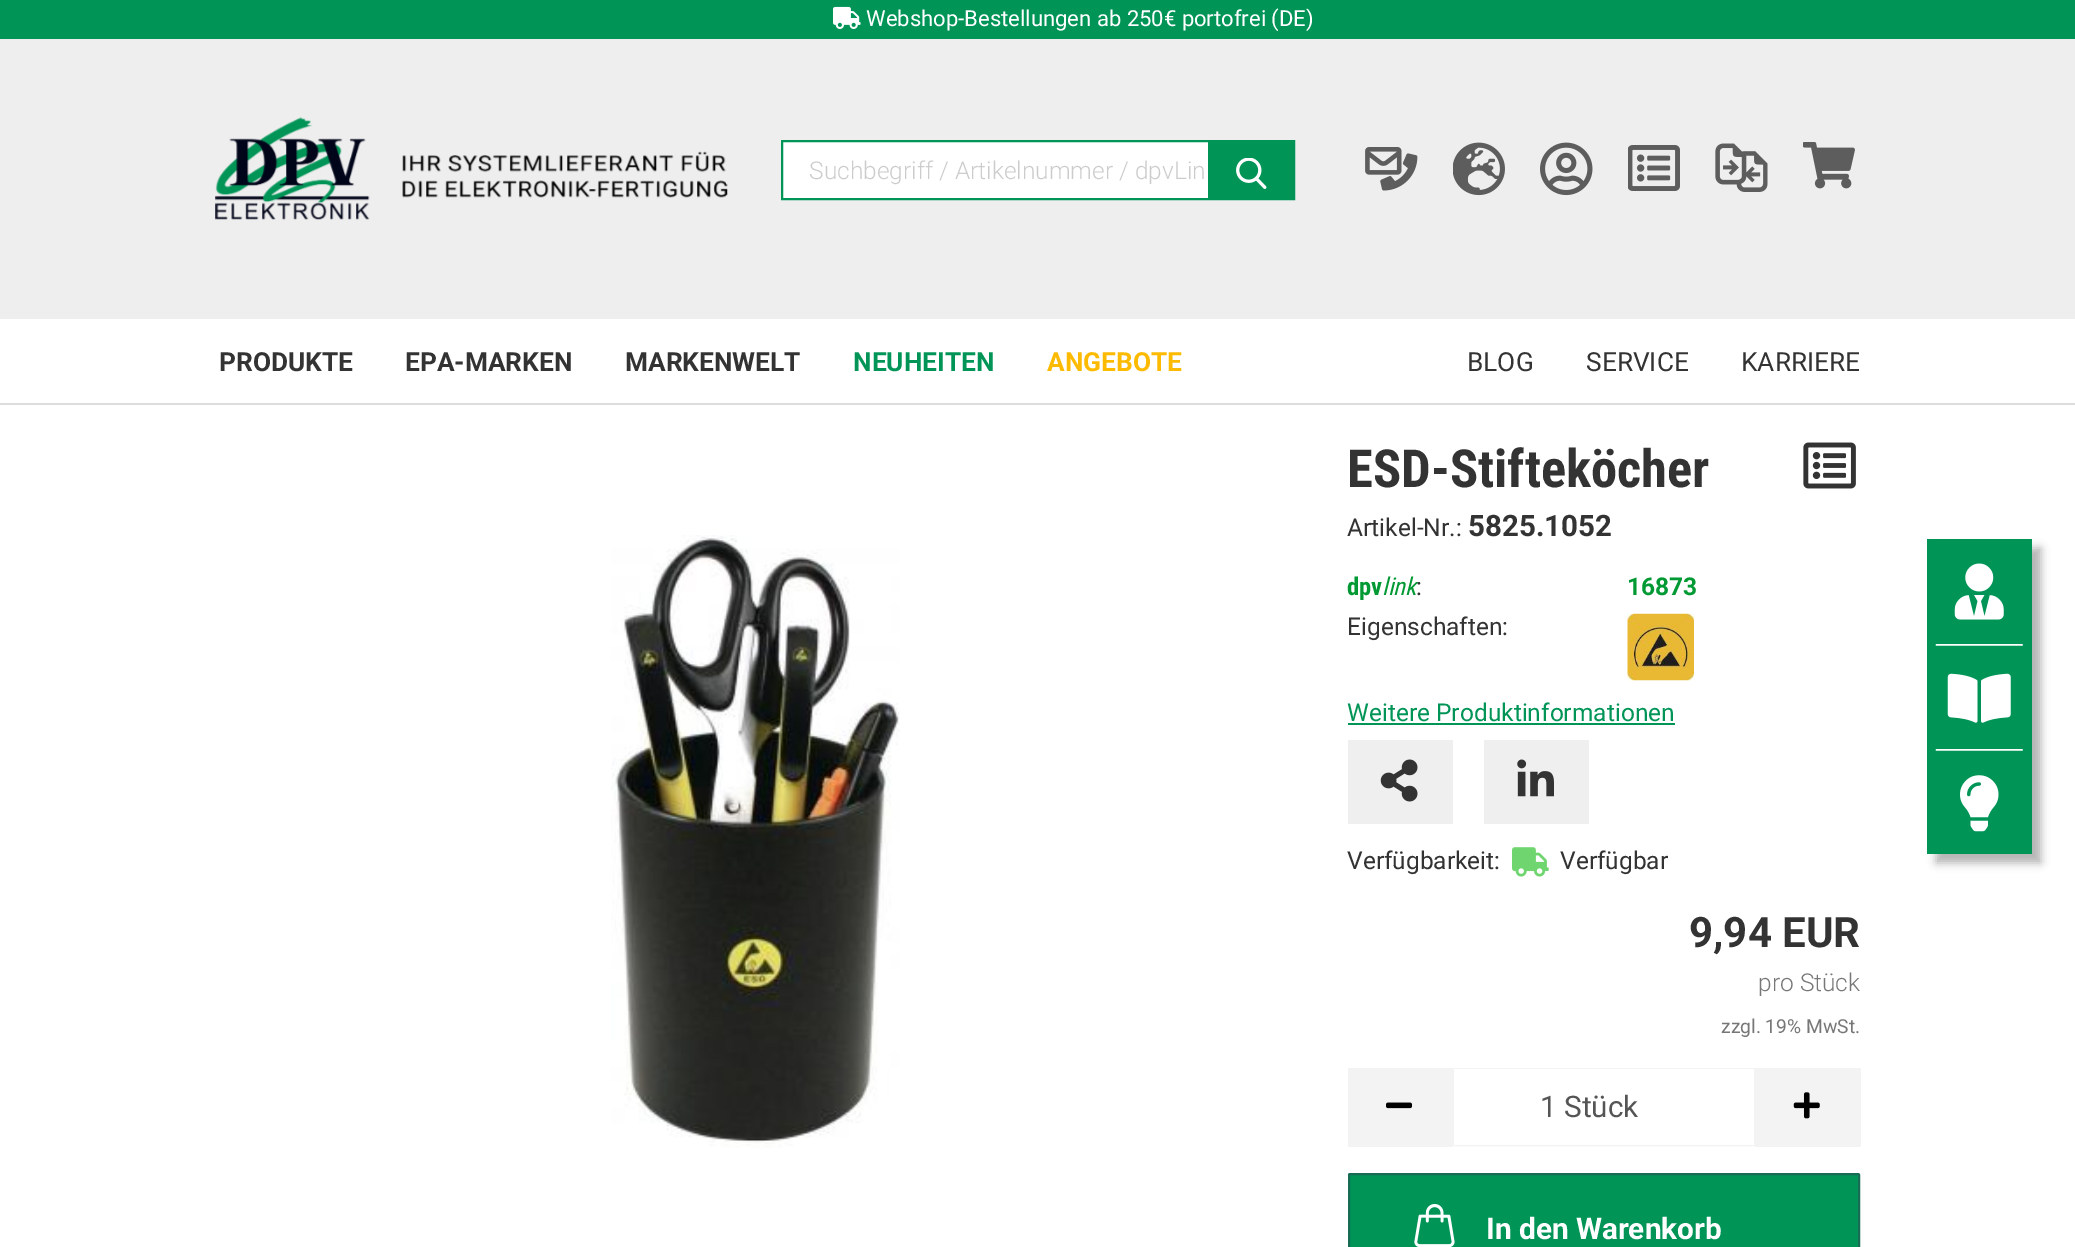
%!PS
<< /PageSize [2075 1247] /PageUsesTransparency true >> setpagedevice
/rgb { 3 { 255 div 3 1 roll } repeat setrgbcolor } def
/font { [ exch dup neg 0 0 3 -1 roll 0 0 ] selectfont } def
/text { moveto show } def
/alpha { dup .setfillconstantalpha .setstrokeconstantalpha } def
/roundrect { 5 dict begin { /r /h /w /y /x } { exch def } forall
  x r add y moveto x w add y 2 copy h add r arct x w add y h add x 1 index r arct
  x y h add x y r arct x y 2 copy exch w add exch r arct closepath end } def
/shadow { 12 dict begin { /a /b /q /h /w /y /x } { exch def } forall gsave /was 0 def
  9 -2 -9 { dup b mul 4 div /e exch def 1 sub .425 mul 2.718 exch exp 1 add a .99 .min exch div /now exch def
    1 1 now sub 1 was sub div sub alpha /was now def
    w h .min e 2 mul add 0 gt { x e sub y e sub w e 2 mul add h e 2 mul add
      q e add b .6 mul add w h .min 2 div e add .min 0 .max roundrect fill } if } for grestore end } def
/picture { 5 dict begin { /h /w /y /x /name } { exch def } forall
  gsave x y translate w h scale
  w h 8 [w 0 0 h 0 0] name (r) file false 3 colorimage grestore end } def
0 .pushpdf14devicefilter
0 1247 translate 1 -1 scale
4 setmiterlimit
255 255 255 rgb
0 0 2075 1247 rectfill
238 238 238 rgb
0 39 2075 280 rectfill
0 148 87 rgb
0 0 2075 39 rectfill
(img_01.rgb) 833 6 28 23 picture
(img_02.rgb) 215 117 513 103 picture
255 255 255 rgb
783 142 425 56 rectfill
0 148 87 rgb
2 setlinewidth
782 141 512 58 rectstroke
1208 142 85 56 rectfill
(img_03.rgb) 1236 158 31 31 picture
(img_04.rgb) 1365 147 53 44 picture
(img_05.rgb) 1453 142 52 54 picture
(img_06.rgb) 1540 142 53 54 picture
(img_07.rgb) 1628 145 52 46 picture
(img_08.rgb) 1715 143 53 49 picture
(img_09.rgb) 1803 142 52 47 picture
221 221 221 rgb
0 403 2075 2 rectfill
(img_10.rgb) 611 535 289 613 picture
(img_11.rgb) 1803 442 53 47 picture
(img_12.rgb) 1627 613 67 68 picture
0 148 87 rgb
1348 723 327 2 rectfill
239 239 239 rgb
1348 740 105 84 rectfill
(img_13.rgb) 1380 759 38 43 picture
1484 740 105 84 rectfill
(img_14.rgb) 1517 759 37 38 picture
(img_15.rgb) 1512 847 37 30 picture
243 243 243 rgb
1348 1068 105 79 rectfill
(img_16.rgb) 1386 1102 27 7 picture
1455 1069 moveto 299 0 rlineto 0 76 rlineto -299 0 rlineto -0.5 0 -1 -0.5 -1 -1 rcurveto 0 -74 rlineto 0 -0.5 0.5 -1 1 -1 rcurveto closepath stroke
255 255 255 rgb
1454 1069 300 76 rectfill
243 243 243 rgb
1755 1068 104 77 rectfill
1859 1068 2 78 rectfill
1755 1145 105 2 rectfill
(img_17.rgb) 1793 1092 27 27 picture
0 148 87 rgb
1349 1174 510 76 1 roundrect gsave fill grestore
24 107 84 rgb
stroke
(img_18.rgb) 1414 1204 41 43 picture
0 0 0 rgb
1936 548 105 315 0 4.5 0.3 shadow
0 148 87 rgb
1927 539 105 315 rectfill
(img_19.rgb) 1954 563 50 57 picture
(img_20.rgb) 1935 644 88 2 picture
(img_21.rgb) 1947 673 64 50 picture
(img_20.rgb) 1935 749 88 2 picture
(img_22.rgb) 1960 775 39 57 picture
/Roboto-Regular 22.05 font
255 255 255 rgb
(Webshop-Bestellungen ab 250€ portofrei \(DE\)) 866 26 text
/Roboto-Light 24.5 font
204 204 204 rgb
(Suchbegriff / Artikelnummer / dpvLin) 809 179 text
/Roboto-Bold 26.25 font
51 51 51 rgb
(PRODUKTE) 219 371 text
(EPA-MARKEN) 405 371 text
(MARKENWELT) 625 371 text
0 148 87 rgb
(NEUHEITEN) 853 371 text
252 186 0 rgb
(ANGEBOTE) 1047 371 text
/Roboto-Regular 26.25 font
51 51 51 rgb
(BLOG) 1467 371 text
(SERVICE) 1586 371 text
(KARRIERE) 1741 371 text
/RobotoCondensed-Bold 52.5 font
(ESD-Stifteköcher) 1347 487 text
/Roboto-Regular 24.5 font
(Artikel-Nr.:) 1347 536 text
/Roboto-Bold 29.5 font
(5825.1052) 1468 536 text
/RobotoCondensed-Bold 24.5 font
0 153 51 rgb
(dpv) 1347 595 text
/RobotoCondensed-Italic 24.5 font
(link) 1382 595 text
/Roboto-Regular 24.5 font
51 51 51 rgb
(:) 1416 595 text
/Roboto-Bold 24.5 font
0 153 51 rgb
(16873) 1627 595 text
/Roboto-Regular 24.5 font
51 51 51 rgb
(Eigenschaften:) 1347 635 text
0 148 87 rgb
(Weitere Produktinformationen) 1347 721 text
51 51 51 rgb
(Verfügbarkeit:) 1347 869 text
(Verfügbar) 1560 869 text
/Roboto-Bold 42 font
(9,94 EUR) 1689 947 text
/Roboto-Light 24.5 font
119 119 119 rgb
(pro Stück) 1758 991 text
/Roboto-Regular 19.25 font
(zzgl. 19% MwSt.) 1721 1033 text
/Roboto-Regular 29.75 font
85 85 85 rgb
(1 Stück) 1540 1117 text
/Roboto-Bold 29.75 font
255 255 255 rgb
(In den Warenkorb) 1486 1239 text
.poppdf14devicefilter showpage
